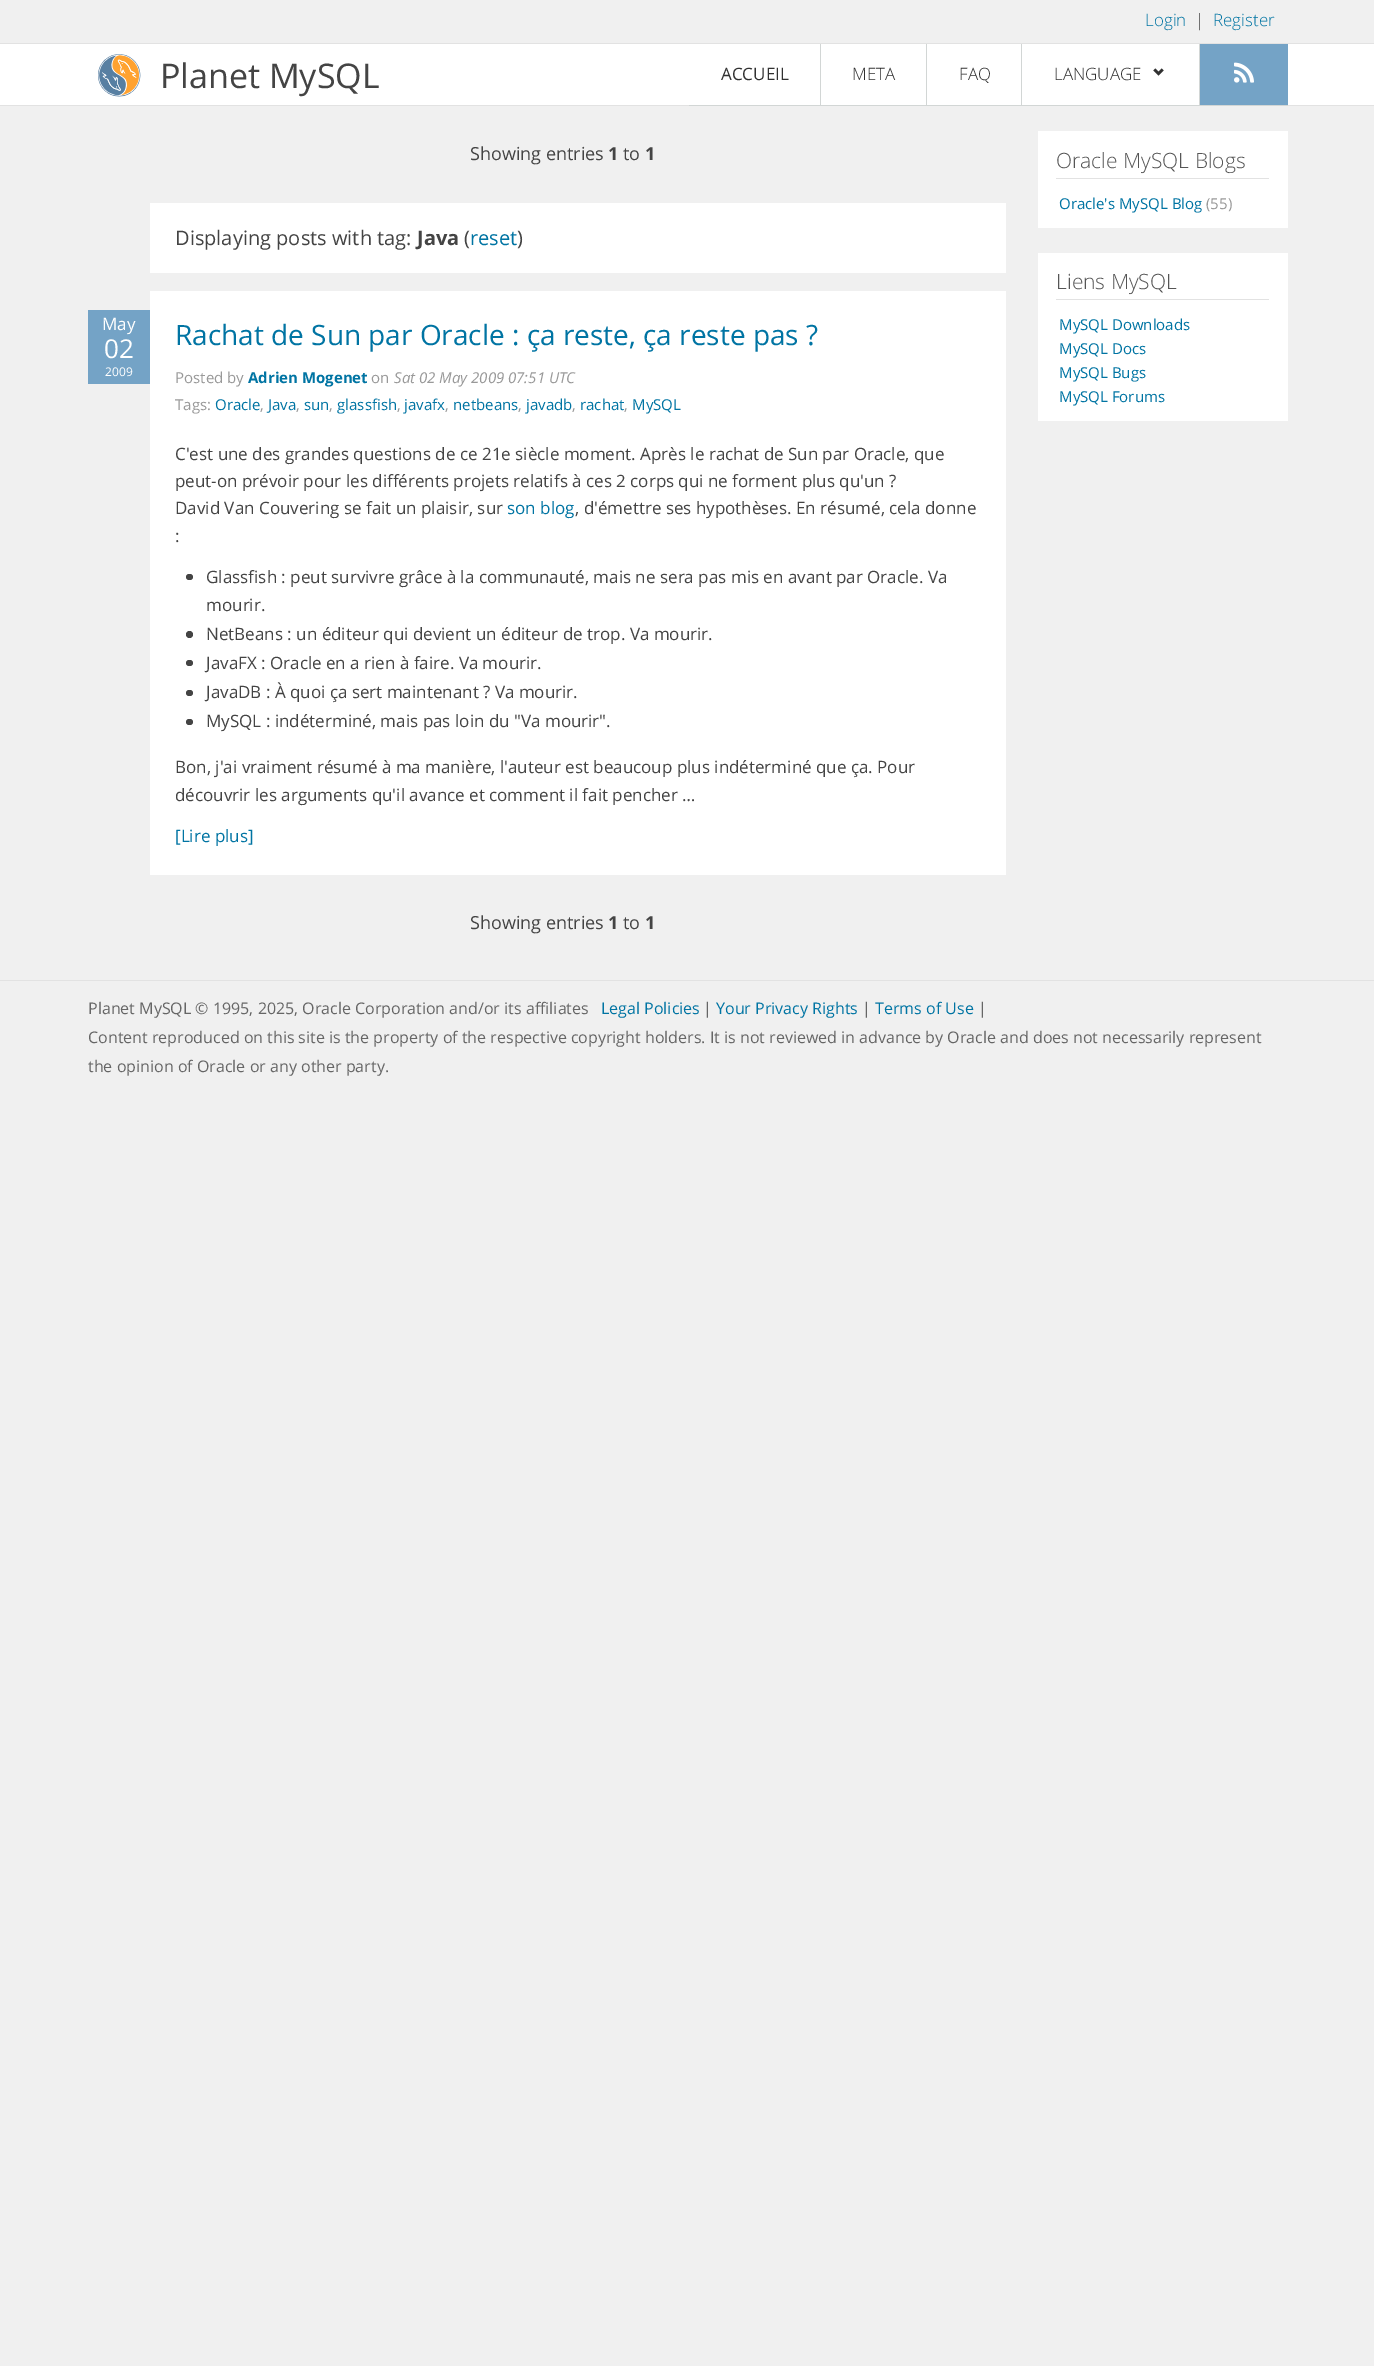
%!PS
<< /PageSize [1374 2366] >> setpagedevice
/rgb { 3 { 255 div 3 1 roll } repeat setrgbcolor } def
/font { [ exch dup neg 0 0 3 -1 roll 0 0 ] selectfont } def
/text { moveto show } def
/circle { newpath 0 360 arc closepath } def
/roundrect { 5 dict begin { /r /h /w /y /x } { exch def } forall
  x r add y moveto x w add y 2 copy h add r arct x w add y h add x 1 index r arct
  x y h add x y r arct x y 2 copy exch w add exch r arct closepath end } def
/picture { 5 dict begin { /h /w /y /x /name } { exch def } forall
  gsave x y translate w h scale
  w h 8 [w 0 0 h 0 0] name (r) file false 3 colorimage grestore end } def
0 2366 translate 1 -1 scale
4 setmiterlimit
240 240 240 rgb
0 0 1374 2366 rectfill
226 226 226 rgb
0 43 1374 1 rectfill
255 255 255 rgb
0 44 1374 61 rectfill
226 226 226 rgb
0 105 1374 1 rectfill
(img_01.rgb) 98 54 43 43 picture
210 214 213 rgb
689 105 599 1 rectfill
820 44 1 62 rectfill
926 44 1 62 rectfill
1021 44 1 62 rectfill
(img_02.rgb) 1153 68 11 8 picture
1199 44 1 62 rectfill
116 163 198 rgb
1200 44 88 61 rectfill
(img_03.rgb) 1234 62 20 21 picture
255 255 255 rgb
150 203 856 70 rectfill
150 291 856 584 rectfill
116 163 198 rgb
88 310 62 74 rectfill
68 68 68 rgb
186 574 7 6 3 roundrect fill
189.5 634.5 3.5 circle fill
186 660 7 6 3 roundrect fill
186 690 7 6 3 roundrect fill
186 719 7 6 3 roundrect fill
255 255 255 rgb
1038 131 250 97 rectfill
226 226 226 rgb
1056 178 213 1 rectfill
255 255 255 rgb
1038 253 250 168 rectfill
226 226 226 rgb
1056 299 213 1 rectfill
0 980 1374 1 rectfill
/OpenSans-Light 17 font
0 116 163 rgb
(Login) 1145 26 text
68 68 68 rgb
(|) 1195 26 text
0 116 163 rgb
(Register) 1213 26 text
/OpenSans-Regular 34 font
68 68 68 rgb
(Planet MySQL) 160 88 text
/OpenSans-Regular 17 font
49 49 49 rgb
(ACCUEIL) 721 80 text
/OpenSans-Light 17 font
(META) 852 80 text
(FAQ) 959 80 text
(LANGUAGE) 1054 80 text
/OpenSans-Regular 18 font
68 68 68 rgb
(Showing entries) 470 160 text
/OpenSans-Bold 18 font
(1) 608 160 text
/OpenSans-Regular 18 font
(to) 623 160 text
/OpenSans-Bold 18 font
(1) 645 160 text
/OpenSans-Regular 20 font
(Displaying posts with tag:) 175 245 text
/OpenSans-Bold 20 font
(Java) 417 245 text
/OpenSans-Regular 20 font
(\() 464 245 text
0 116 163 rgb
(reset) 470 245 text
68 68 68 rgb
(\)) 517 245 text
/OpenSans-Regular 17 font
255 255 255 rgb
(May) 102 330 text
/OpenSans-Regular 26 font
(02) 104 358 text
/OpenSans-Regular 12 font
(2009) 105 376 text
/OpenSans-Regular 28 font
0 116 163 rgb
(Rachat de Sun par Oracle : ça reste, ça reste pas ?) 175 345 text
/OpenSans-Regular 15 font
153 153 153 rgb
(Posted by) 175 383 text
/OpenSans-Bold 15 font
0 116 163 rgb
(Adrien Mogenet) 248 383 text
/OpenSans-Regular 15 font
153 153 153 rgb
(on) 371 383 text
/OpenSans-Italic 15 font
(Sat 02 May 2009 07:51 UTC) 394 383 text
/OpenSans-Regular 15 font
(Tags:) 175 410 text
0 116 163 rgb
(Oracle) 215 410 text
153 153 153 rgb
(,) 260 410 text
0 116 163 rgb
(Java) 268 410 text
153 153 153 rgb
(,) 296 410 text
0 116 163 rgb
(sun) 304 410 text
153 153 153 rgb
(,) 329 410 text
0 116 163 rgb
(glassfish) 337 410 text
153 153 153 rgb
(,) 397 410 text
0 116 163 rgb
(javafx) 404 410 text
153 153 153 rgb
(,) 445 410 text
0 116 163 rgb
(netbeans) 453 410 text
153 153 153 rgb
(,) 518 410 text
0 116 163 rgb
(javadb) 526 410 text
153 153 153 rgb
(,) 572 410 text
0 116 163 rgb
(rachat) 580 410 text
153 153 153 rgb
(,) 624 410 text
0 116 163 rgb
(MySQL) 632 410 text
/OpenSans-Regular 17 font
68 68 68 rgb
(C'est une des grandes questions de ce 21e siècle moment. Après le rachat de Sun par Oracle, que) 175 460 text
(peut-on prévoir pour les différents projets relatifs à ces 2 corps qui ne forment plus qu'un ?) 175 487 text
(David Van Couvering se fait un plaisir, sur) 175 514 text
0 116 163 rgb
(son blog) 507 514 text
68 68 68 rgb
(, d'émettre ses hypothèses. En résumé, cela donne) 575 514 text
(:) 175 542 text
(Glassfish : peut survivre grâce à la communauté, mais ne sera pas mis en avant par Oracle. Va) 206 583 text
(mourir.) 206 611 text
(NetBeans : un éditeur qui devient un éditeur de trop. Va mourir.) 206 640 text
(JavaFX : Oracle en a rien à faire. Va mourir.) 206 669 text
(JavaDB : À quoi ça sert maintenant ? Va mourir.) 206 698 text
(MySQL : indéterminé, mais pas loin du "Va mourir".) 206 727 text
(Bon, j'ai vraiment résumé à ma manière, l'auteur est beaucoup plus indéterminé que ça. Pour) 175 773 text
(découvrir les arguments qu'il avance et comment il fait pencher …) 175 801 text
0 116 163 rgb
([Lire plus]) 175 842 text
/OpenSans-Regular 18 font
68 68 68 rgb
(Showing entries) 470 929 text
/OpenSans-Bold 18 font
(1) 608 929 text
/OpenSans-Regular 18 font
(to) 623 929 text
/OpenSans-Bold 18 font
(1) 645 929 text
/OpenSans-Light 21 font
85 85 85 rgb
(Oracle MySQL Blogs) 1056 168 text
/OpenSans-Regular 15 font
0 116 163 rgb
(Oracle's MySQL Blog) 1059 209 text
153 153 153 rgb
(\(55\)) 1206 209 text
/OpenSans-Light 21 font
85 85 85 rgb
(Liens MySQL) 1056 289 text
/OpenSans-Regular 15 font
0 116 163 rgb
(MySQL Downloads) 1059 330 text
(MySQL Docs) 1059 354 text
(MySQL Bugs) 1059 378 text
(MySQL Forums) 1059 402 text
/OpenSans-Regular 16 font
102 102 102 rgb
(Planet MySQL © 1995, 2025, Oracle Corporation and/or its affiliates) 88 1014 text
0 116 163 rgb
(Legal Policies) 601 1014 text
102 102 102 rgb
(|) 703 1014 text
0 116 163 rgb
(Your Privacy Rights) 716 1014 text
102 102 102 rgb
(|) 862 1014 text
0 116 163 rgb
(Terms of Use) 875 1014 text
102 102 102 rgb
(|) 978 1014 text
(Content reproduced on this site is the property of the respective copyright holders. It is not reviewed in advance by Oracle and does not necessarily represent) 88 1043 text
(the opinion of Oracle or any other party.) 88 1072 text
showpage
